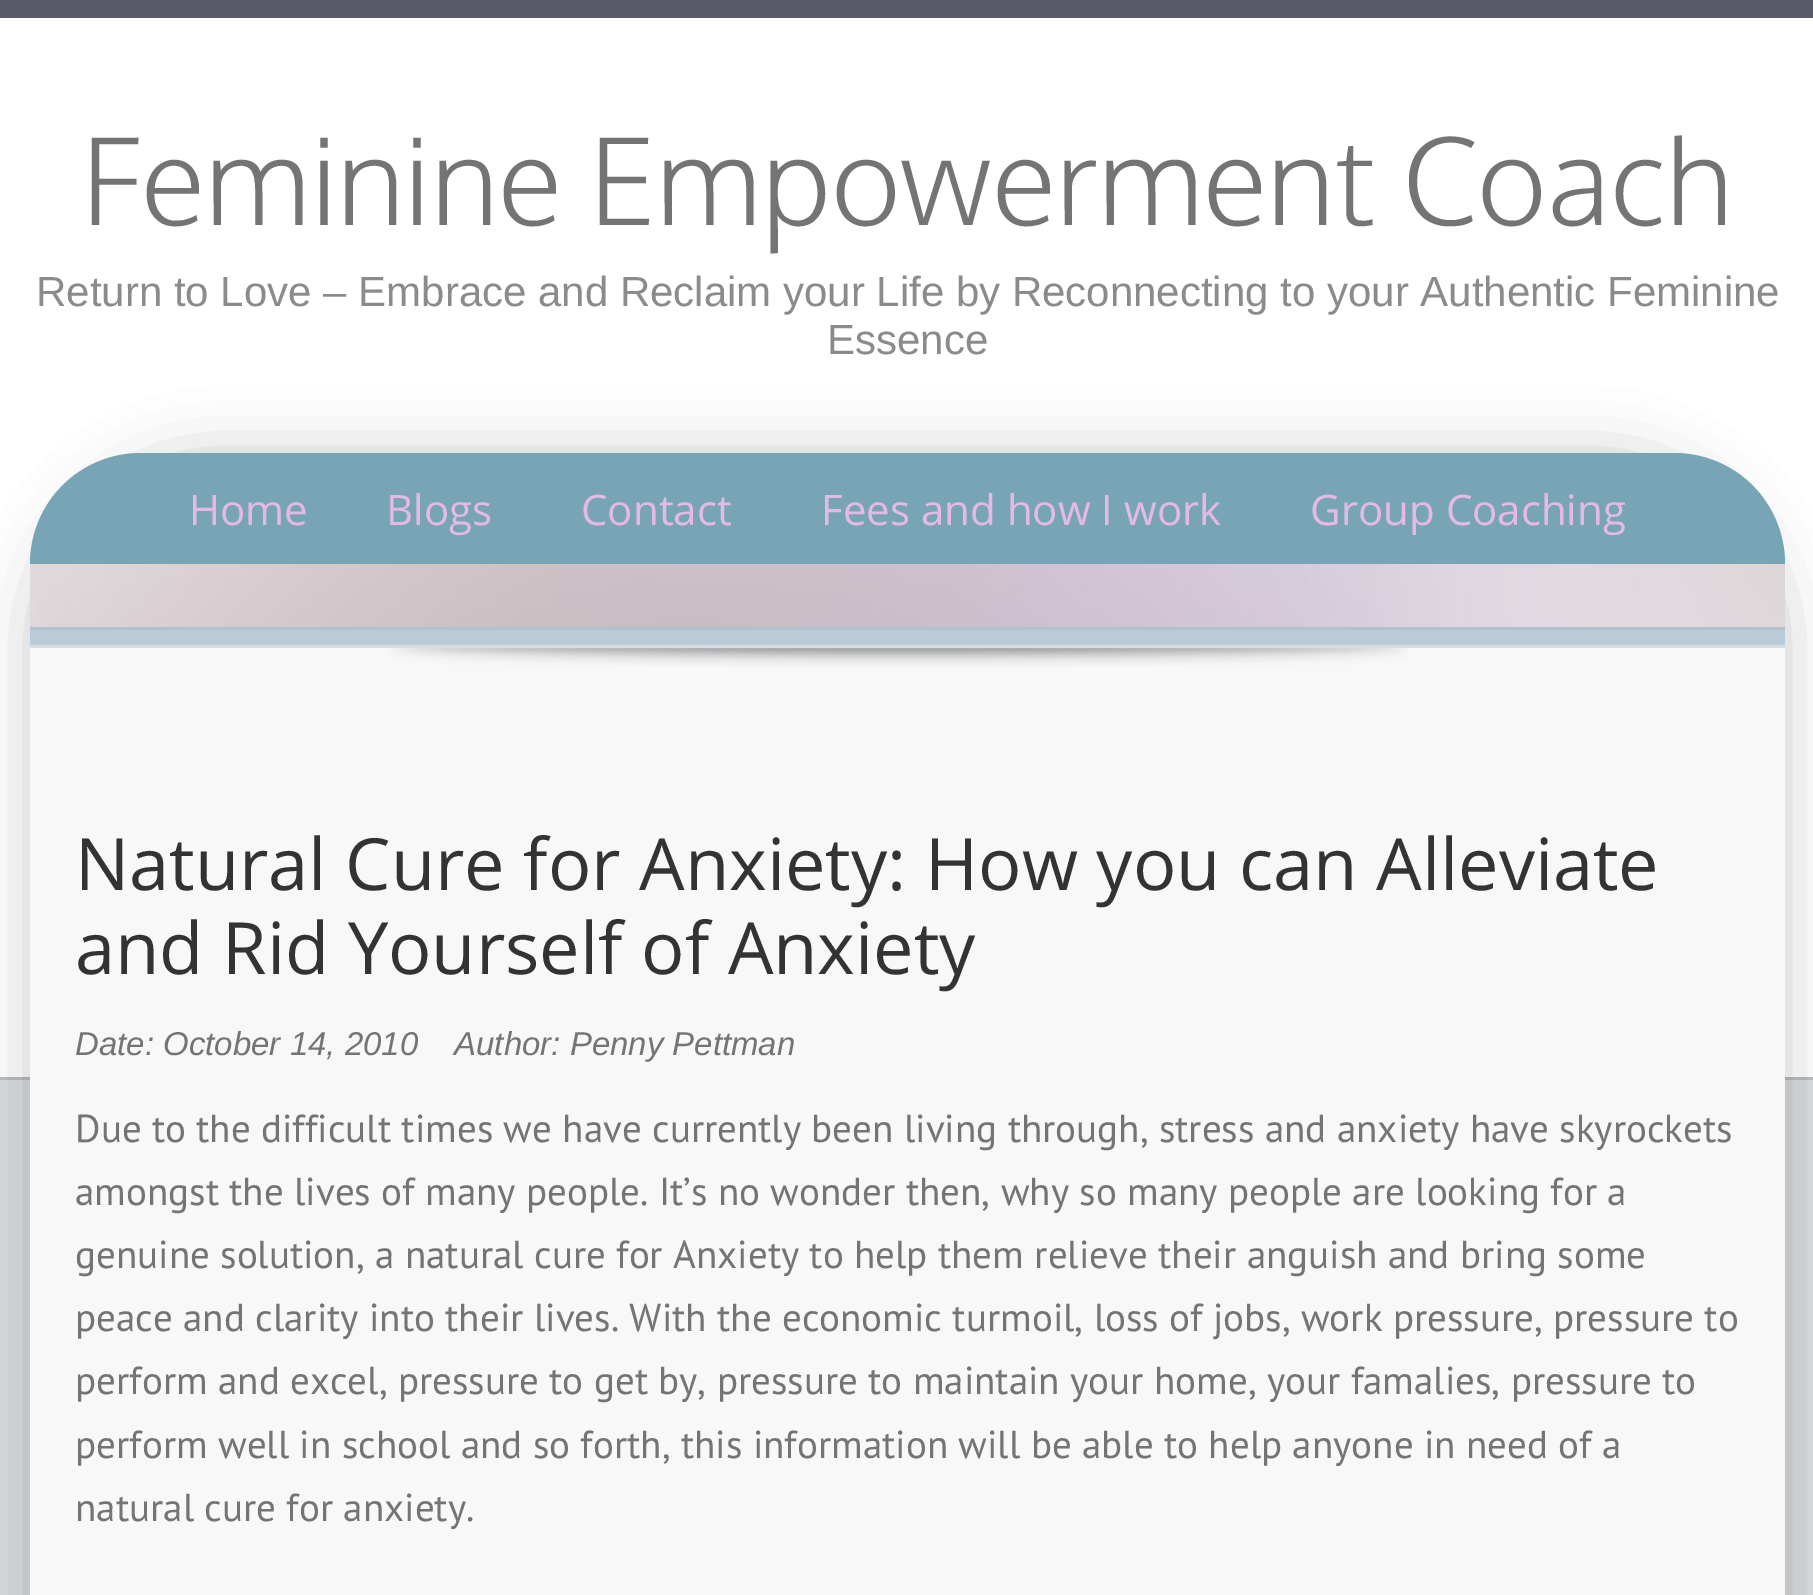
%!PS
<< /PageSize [1813 1595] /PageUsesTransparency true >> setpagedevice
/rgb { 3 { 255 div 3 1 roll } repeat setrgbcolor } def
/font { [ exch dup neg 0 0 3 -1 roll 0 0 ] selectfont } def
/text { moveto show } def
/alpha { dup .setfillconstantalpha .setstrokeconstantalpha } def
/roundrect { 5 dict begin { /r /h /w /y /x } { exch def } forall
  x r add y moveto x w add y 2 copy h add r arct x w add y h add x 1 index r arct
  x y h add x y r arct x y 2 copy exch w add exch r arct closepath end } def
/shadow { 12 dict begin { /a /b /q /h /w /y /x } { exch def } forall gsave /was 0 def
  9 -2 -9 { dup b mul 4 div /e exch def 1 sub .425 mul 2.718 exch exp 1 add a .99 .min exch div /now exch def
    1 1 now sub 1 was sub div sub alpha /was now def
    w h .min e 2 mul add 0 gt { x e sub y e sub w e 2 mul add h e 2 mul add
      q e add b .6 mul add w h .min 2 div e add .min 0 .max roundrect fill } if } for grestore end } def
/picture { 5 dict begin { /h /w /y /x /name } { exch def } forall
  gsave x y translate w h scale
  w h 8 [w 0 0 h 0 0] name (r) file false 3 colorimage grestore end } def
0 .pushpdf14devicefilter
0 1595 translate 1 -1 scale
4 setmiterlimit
218 221 223 rgb
0 0 1813 1595 rectfill
255 255 255 rgb
0 18 1813 1059 rectfill
89 90 103 rgb
0 0 1813 18 rectfill
188 188 188 rgb
0 1077 1813 3 rectfill
0 0 0 rgb
30 453 1755 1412 180 30 0.2 shadow
248 248 248 rgb
210 453 moveto 1395 0 rlineto 99.5 0 180 80.5 180 180 rcurveto 0 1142 rlineto -1755 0 rlineto 0 -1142 rlineto 0 -99.5 80.5 -180 180 -180 rcurveto closepath fill
120 165 182 rgb
141 453 moveto 1533 0 rlineto 61.5 0 111 49.5 111 111 rcurveto -1755 0 rlineto 0 -61.5 49.5 -111 111 -111 rcurveto closepath fill
(img_01.rgb) 30 564 1755 63 picture
178 193 204 rgb
30 627 1755 3 rectfill
185 203 216 rgb
30 630 1755 15 rectfill
215 223 230 rgb
30 645 1755 3 rectfill
(img_02.rgb) 391 648 1017 19 picture
/Oxygen-Light 120 font
116 116 116 rgb
(Feminine Empowerment Coach) 81 225 text
/LiberationSans-Regular 42 font
139 139 139 rgb
(Return to Love – Embrace and Reclaim your Life by Reconnecting to your Authentic Feminine) 36 306 text
(Essence) 827 354 text
/OpenSans-Regular 42 font
228 185 229 rgb
(Home) 189 525 text
(Blogs) 386 525 text
(Contact) 581 525 text
(Fees and how I work) 821 525 text
(Group Coaching) 1310 525 text
/OpenSans-Regular 72 font
51 51 51 rgb
(Natural Cure for Anxiety: How you can Alleviate) 75 890 text
(and Rid Yourself of Anxiety) 75 974 text
/LiberationSans-Italic 33 font
116 116 116 rgb
(Date: October 14, 2010) 75 1055 text
(Author: Penny Pettman) 454 1055 text
/PTSans-Regular 39 font
(Due to the difficult times we have currently been living through, stress and anxiety have skyrockets) 75 1142 text
(amongst the lives of many people. It’s no wonder then, why so many people are looking for a) 75 1205 text
(genuine solution, a natural cure for Anxiety to help them relieve their anguish and bring some) 75 1268 text
(peace and clarity into their lives. With the economic turmoil, loss of jobs, work pressure, pressure to) 75 1331 text
(perform and excel, pressure to get by, pressure to maintain your home, your famalies, pressure to) 75 1394 text
(perform well in school and so forth, this information will be able to help anyone in need of a) 75 1458 text
(natural cure for anxiety.) 75 1521 text
.poppdf14devicefilter showpage
